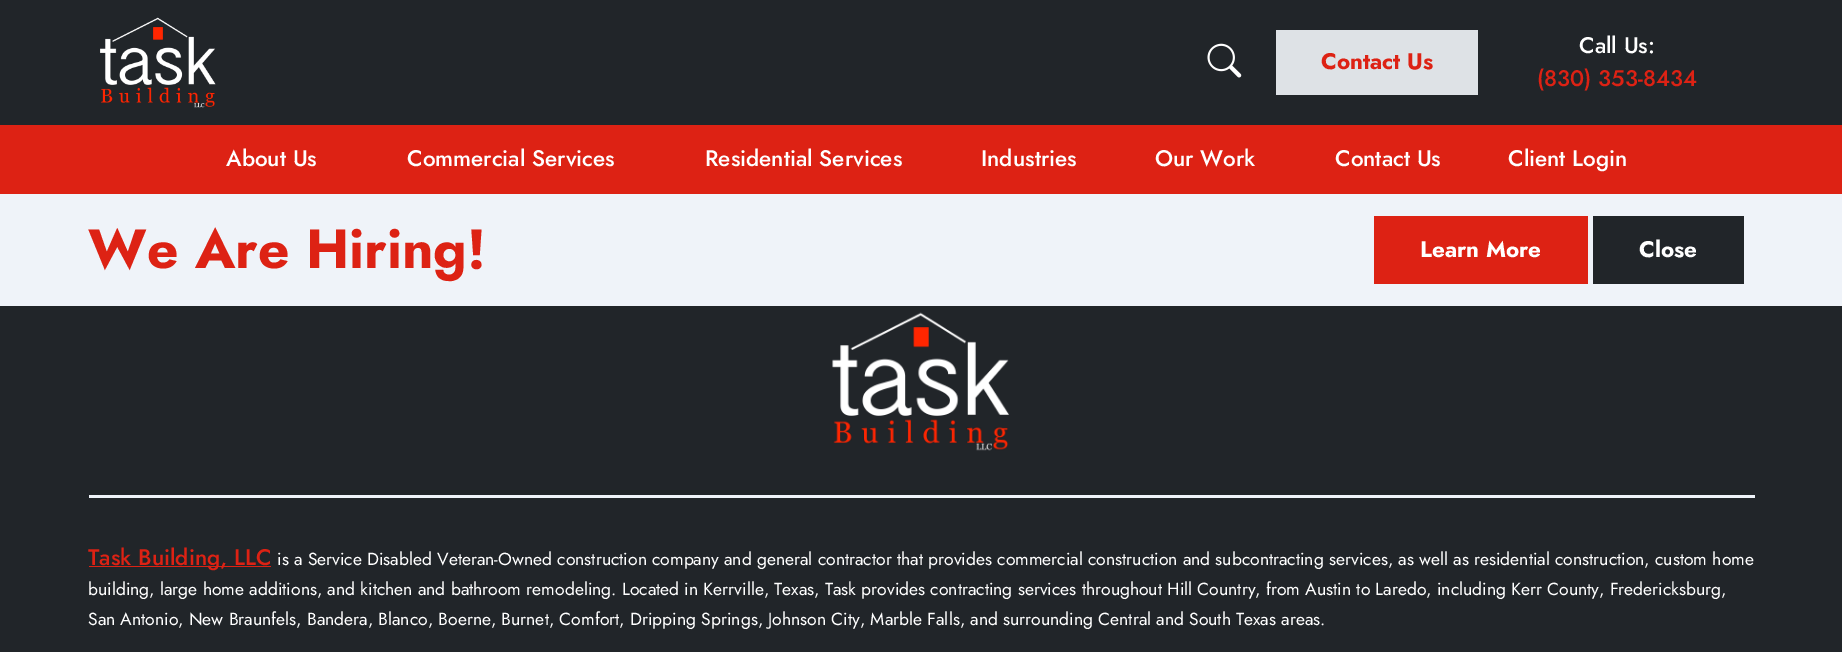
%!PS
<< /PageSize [1842 652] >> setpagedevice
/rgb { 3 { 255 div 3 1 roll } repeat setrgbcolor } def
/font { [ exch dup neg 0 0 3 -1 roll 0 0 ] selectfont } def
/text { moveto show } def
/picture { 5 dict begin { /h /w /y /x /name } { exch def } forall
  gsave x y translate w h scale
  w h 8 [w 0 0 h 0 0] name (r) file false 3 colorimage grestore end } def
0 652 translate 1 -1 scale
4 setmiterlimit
33 37 41 rgb
0 0 1842 652 rectfill
(img_01.rgb) 100 17 116 91 picture
(img_02.rgb) 1207 43 35 35 picture
222 226 230 rgb
1276 30 202 65 rectfill
221 34 20 rgb
0 125 1842 69 rectfill
239 243 249 rgb
0 194 1842 112 rectfill
221 34 20 rgb
1374 216 214 68 rectfill
33 37 41 rgb
1593 216 151 68 rectfill
239 243 249 rgb
89 495 1666 3 rectfill
(img_03.rgb) 832 312 178 139 picture
221 34 20 rgb
89 566 182 1 rectfill
/Jost-Bold 22.5 font
(Contact Us) 1321 69 text
/Jost-Medium 22.5 font
255 255 255 rgb
(Call Us:) 1579 53 text
221 34 20 rgb
(\(830\) 353-8434) 1537 86 text
255 255 255 rgb
(About Us) 226 166 text
(Commercial Services) 407 166 text
(Residential Services) 705 166 text
(Industries) 981 166 text
(Our Work) 1155 166 text
(Contact Us) 1335 166 text
(Client Login) 1508 166 text
/Jost-Bold 55 font
221 34 20 rgb
(We Are Hiring!) 88 268 text
/Jost-Bold 22.5 font
255 255 255 rgb
(Learn More) 1420 257 text
(Close) 1639 257 text
/Jost-Medium 22.5 font
221 34 20 rgb
(Task Building, LLC) 88 565 text
/Jost-Regular 17.5 font
255 255 255 rgb
(is a Service Disabled Veteran-Owned construction company and general contractor that provides commercial construction and subcontracting services, as well as residential construction, custom home) 277 565 text
(building, large home additions, and kitchen and bathroom remodeling. Located in Kerrville, Texas, Task provides contracting services throughout Hill Country, from Austin to Laredo, including Kerr County, Fredericksburg,) 88 595 text
(San Antonio, New Braunfels, Bandera, Blanco, Boerne, Burnet, Comfort, Dripping Springs, Johnson City, Marble Falls, and surrounding Central and South Texas areas.) 88 625 text
showpage
